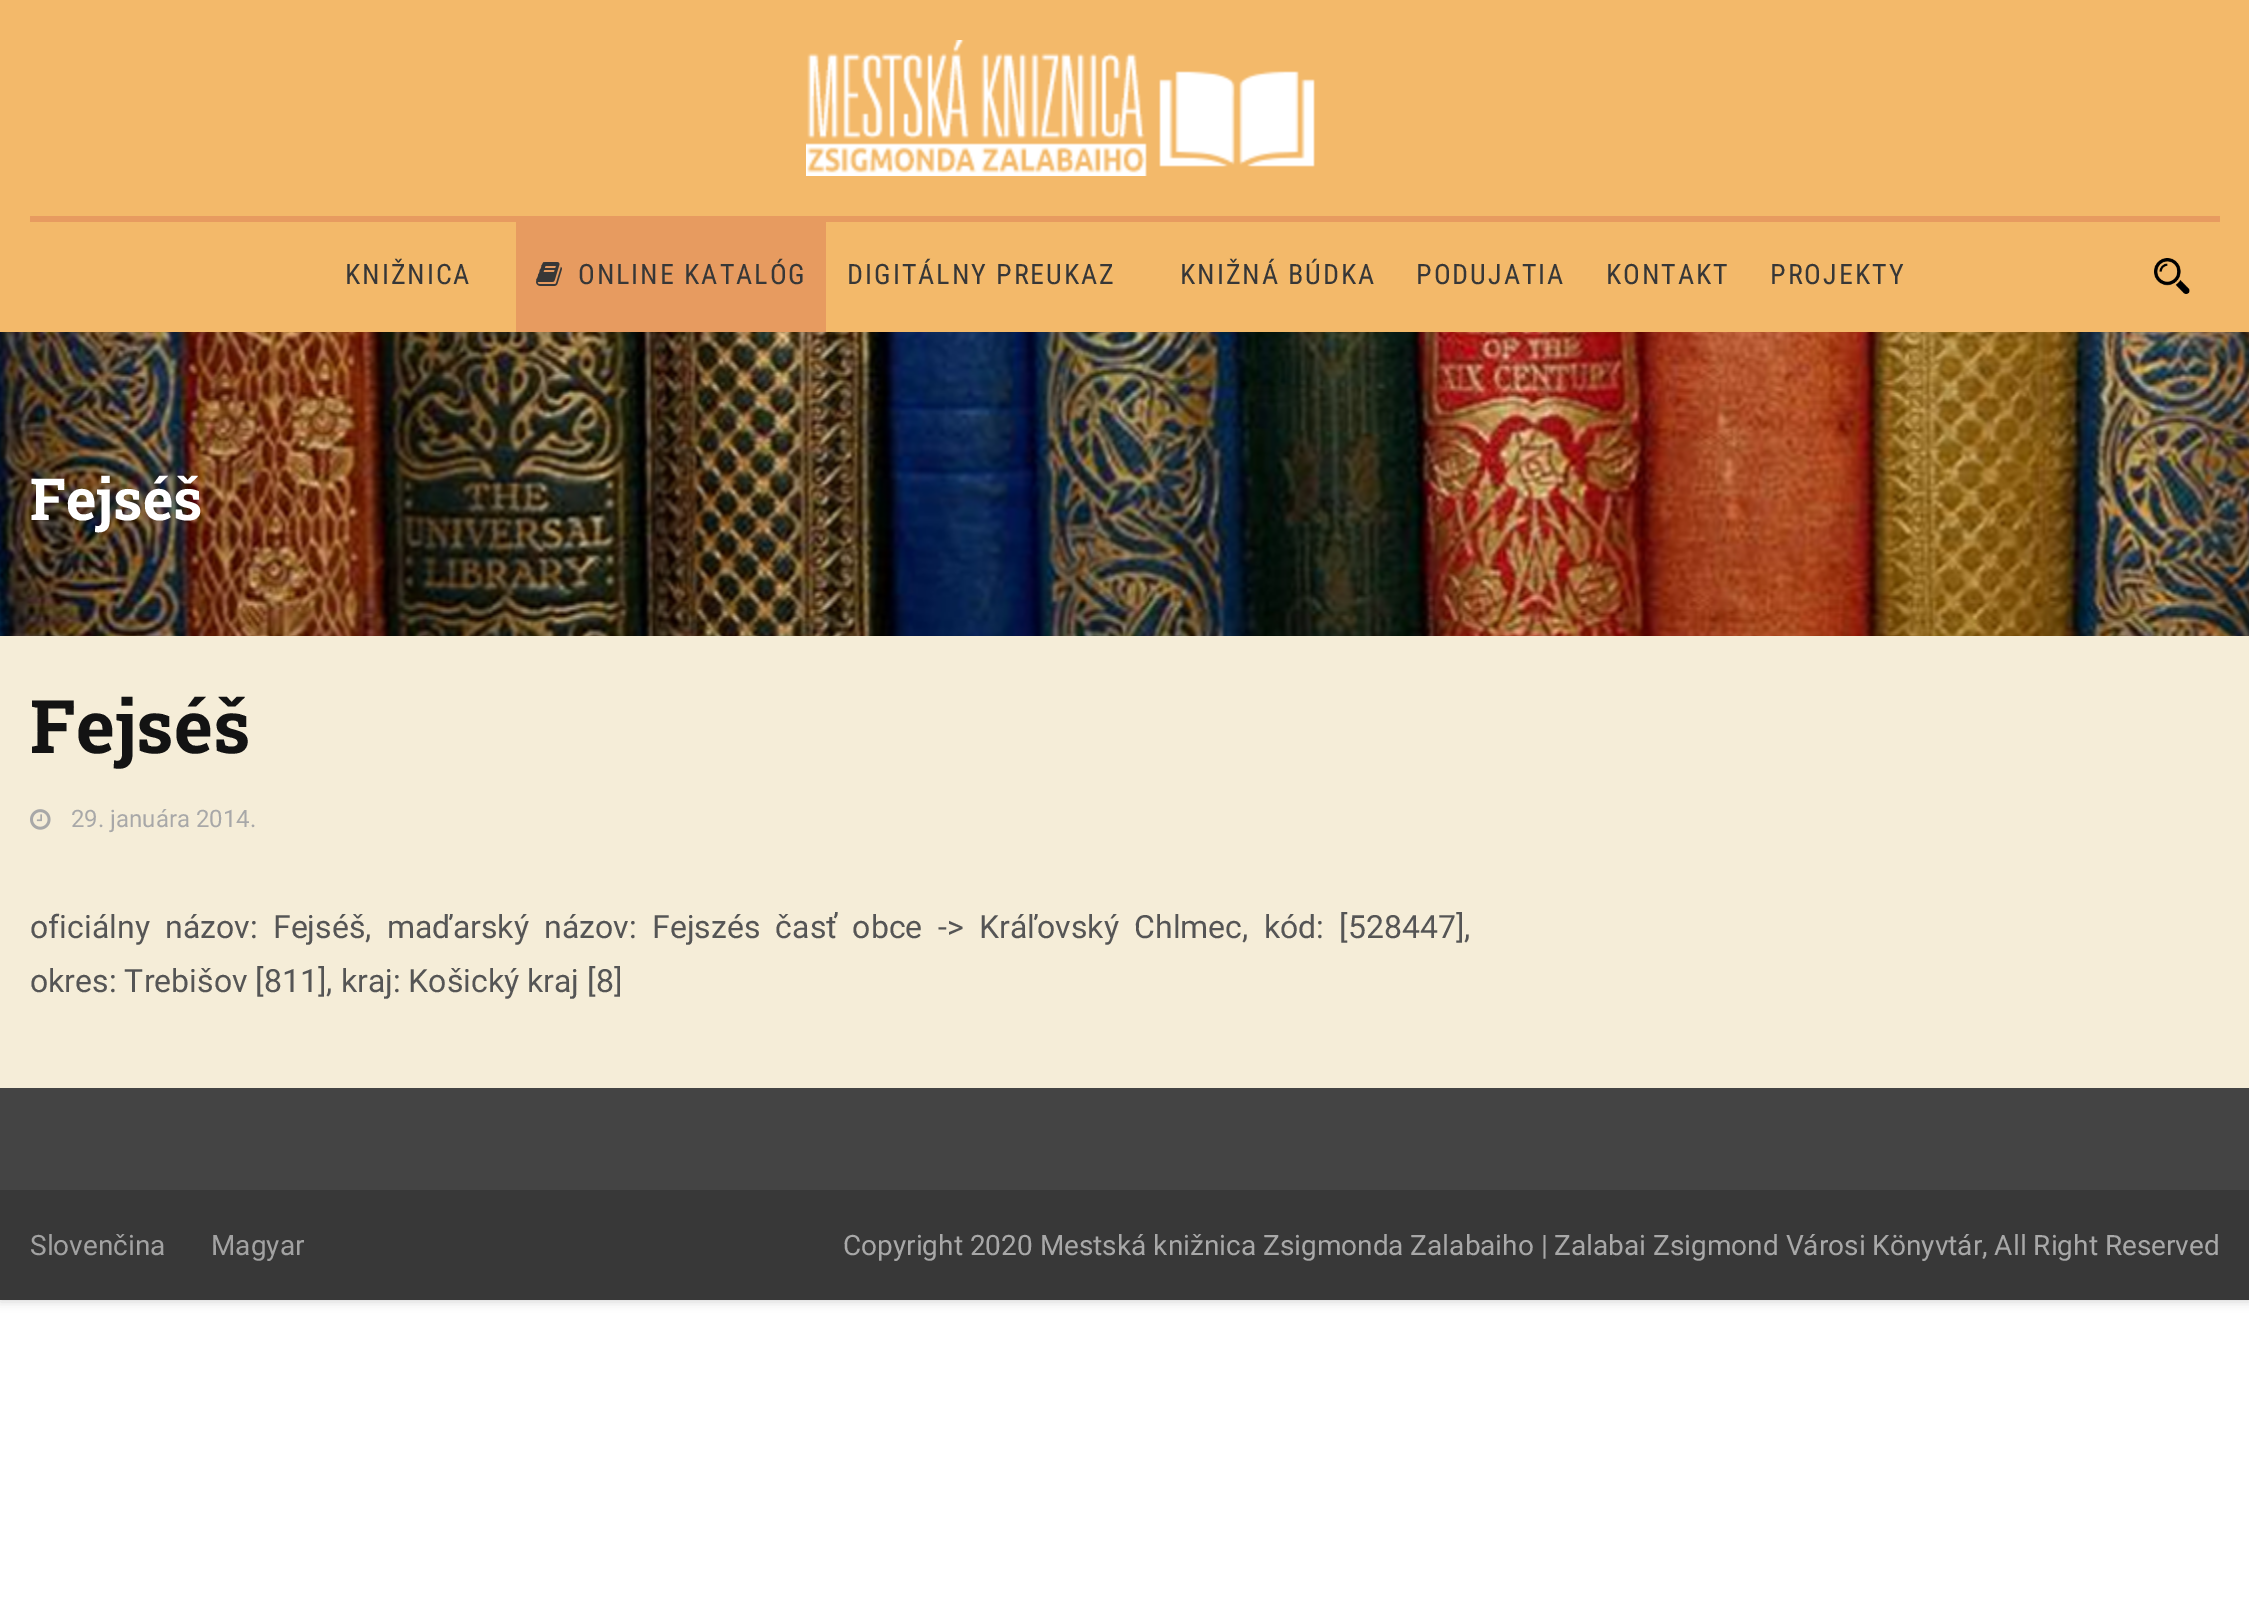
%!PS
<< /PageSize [2249 1621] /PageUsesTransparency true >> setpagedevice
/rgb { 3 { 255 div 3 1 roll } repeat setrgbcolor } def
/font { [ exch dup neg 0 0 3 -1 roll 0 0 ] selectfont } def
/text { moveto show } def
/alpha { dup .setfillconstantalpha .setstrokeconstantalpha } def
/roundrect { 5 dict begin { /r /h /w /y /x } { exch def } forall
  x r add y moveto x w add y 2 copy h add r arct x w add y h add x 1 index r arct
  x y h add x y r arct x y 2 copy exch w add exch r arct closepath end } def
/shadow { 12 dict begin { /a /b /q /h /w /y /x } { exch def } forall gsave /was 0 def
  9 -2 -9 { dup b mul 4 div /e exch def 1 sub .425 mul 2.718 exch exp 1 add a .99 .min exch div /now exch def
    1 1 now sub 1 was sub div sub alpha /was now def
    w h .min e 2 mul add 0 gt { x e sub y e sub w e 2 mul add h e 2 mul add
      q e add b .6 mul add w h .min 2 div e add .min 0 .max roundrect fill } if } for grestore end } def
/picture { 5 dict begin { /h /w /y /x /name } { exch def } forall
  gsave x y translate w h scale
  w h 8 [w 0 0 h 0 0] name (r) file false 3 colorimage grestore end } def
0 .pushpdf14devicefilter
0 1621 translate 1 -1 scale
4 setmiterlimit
255 255 255 rgb
0 0 2249 1621 rectfill
0 0 0 rgb
0 2 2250 1300 0 5 0.15 shadow
243 185 106 rgb
0 0 2249 332 rectfill
(img_01.rgb) 806 40 509 136 picture
231 155 96 rgb
30 216 2190 6 rectfill
516 222 310 110 rectfill
(img_02.rgb) 536 262 26 24 picture
(img_03.rgb) 2154 258 36 36 picture
(img_04.rgb) 0 332 2249 304 picture
245 237 216 rgb
0 636 2249 452 rectfill
(img_05.rgb) 30 809 21 21 picture
68 68 68 rgb
0 1088 2249 102 rectfill
56 56 56 rgb
0 1190 2249 110 rectfill
/RobotoCondensed-Regular 28 font
55 55 55 rgb
345 284 moveto 2 0 (KNIŽNICA) ashow
578 284 moveto 2 0 (ONLINE KATALÓG) ashow
847 284 moveto 2 0 (DIGITÁLNY PREUKAZ) ashow
1180 284 moveto 2 0 (KNIŽNÁ BÚDKA) ashow
1416 284 moveto 2 0 (PODUJATIA) ashow
1606 284 moveto 2 0 (KONTAKT) ashow
1770 284 moveto 2 0 (PROJEKTY) ashow
/RobotoSlab-Bold 58 font
255 255 255 rgb
(Fejséš) 30 520 text
/RobotoSlab-Bold 74 font
19 19 19 rgb
(Fejséš) 30 753 text
/Roboto-Regular 24 font
168 168 168 rgb
(29. januára 2014.) 71 827 text
/Roboto-Regular 32 font
85 85 85 rgb
30 938 moveto 7.4 0 32 (oficiálny názov: Fejséš, maďarský názov: Fejszés časť obce -> Kráľovský Chlmec, kód: [528447],) widthshow
(okres: Trebišov [811], kraj: Košický kraj [8]) 30 992 text
/Roboto-Regular 28 font
162 162 162 rgb
(Slovenčina) 30 1255 text
(Magyar) 211 1255 text
168 168 168 rgb
(Copyright 2020 Mestská knižnica Zsigmonda Zalabaiho | Zalabai Zsigmond Városi Könyvtár, All Right Reserved) 843 1255 text
.poppdf14devicefilter showpage
